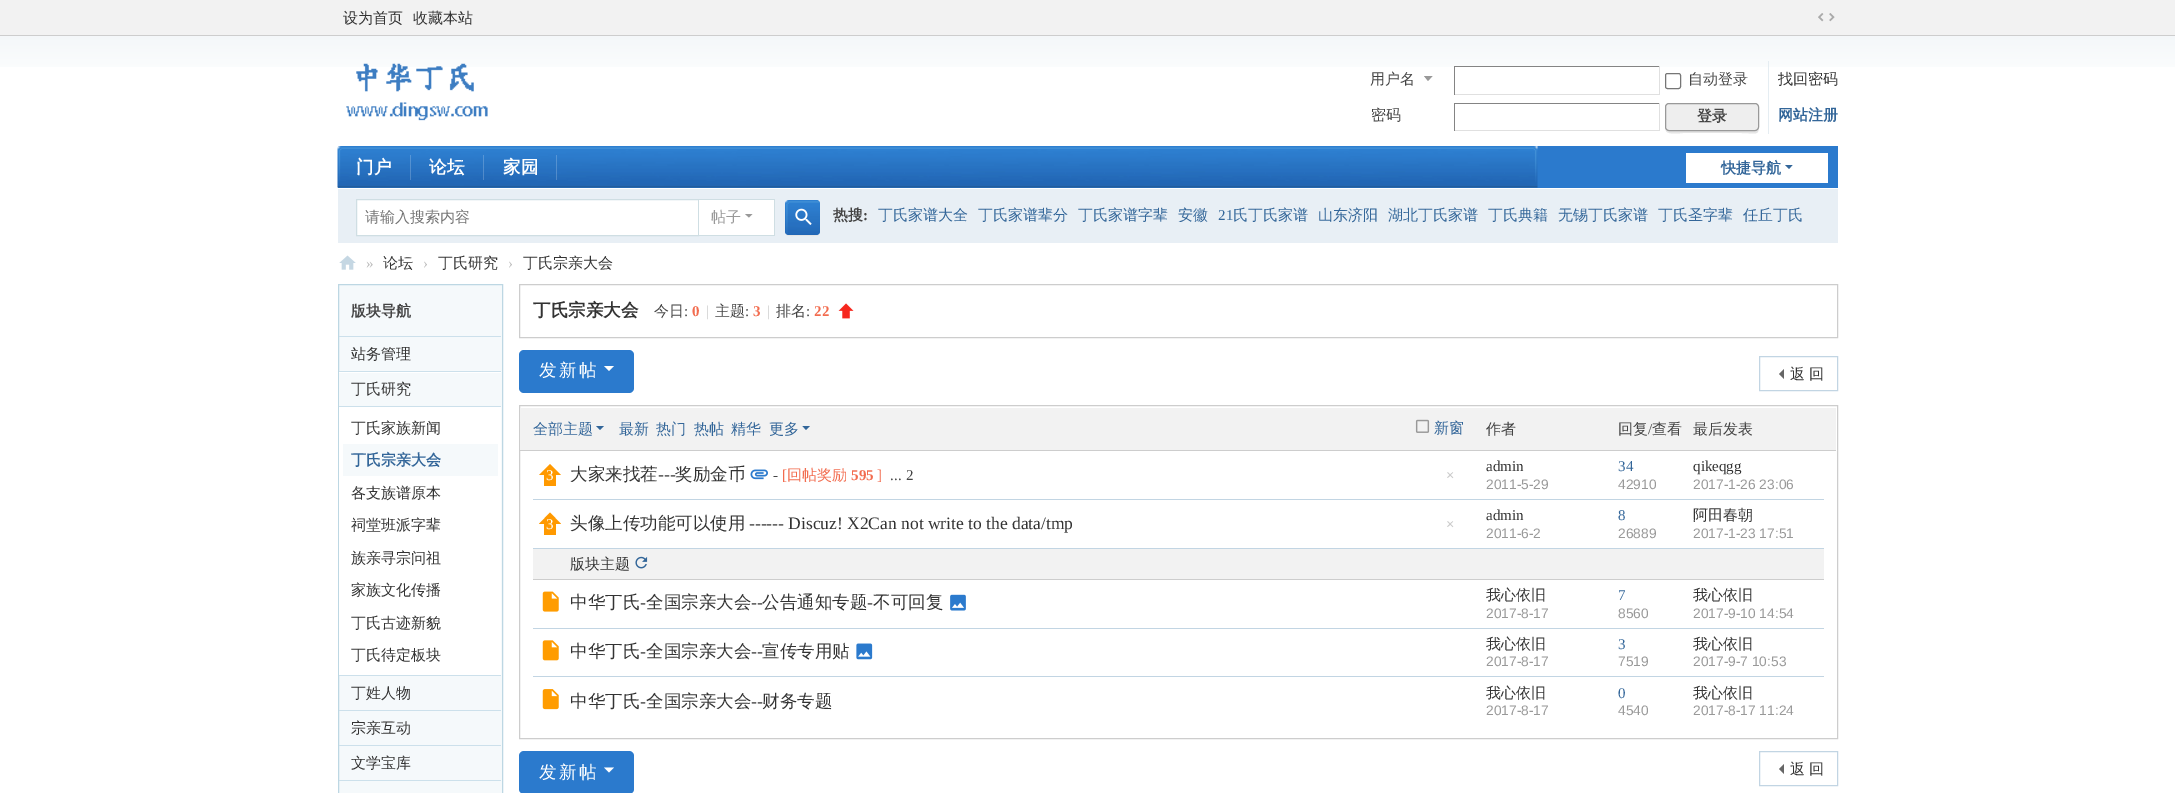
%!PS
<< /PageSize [2175 793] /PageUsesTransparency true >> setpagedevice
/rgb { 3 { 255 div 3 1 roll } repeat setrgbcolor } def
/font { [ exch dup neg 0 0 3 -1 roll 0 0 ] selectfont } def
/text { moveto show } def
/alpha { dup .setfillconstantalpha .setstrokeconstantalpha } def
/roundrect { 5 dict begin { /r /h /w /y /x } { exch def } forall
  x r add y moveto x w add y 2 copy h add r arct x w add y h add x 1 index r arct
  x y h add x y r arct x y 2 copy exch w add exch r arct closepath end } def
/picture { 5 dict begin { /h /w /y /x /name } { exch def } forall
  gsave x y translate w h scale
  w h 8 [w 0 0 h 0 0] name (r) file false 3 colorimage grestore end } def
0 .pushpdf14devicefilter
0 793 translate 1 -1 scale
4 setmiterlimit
255 255 255 rgb
0 0 2175 793 rectfill
(img_01.rgb) 0 36 2175 31 picture
242 242 242 rgb
0 0 2175 35 rectfill
205 205 205 rgb
0 35 2175 1 rectfill
(img_02.rgb) 1818 13 17 9 picture
(img_03.rgb) 346 63 142 58 picture
153 153 153 rgb
1432.5 76 moveto -8.5 0 rlineto 4 5 rlineto closepath fill
132 132 132 rgb
1454 66 206 1 rectfill
224 224 224 rgb
1659 66 1 29 rectfill
1454 94 206 1 rectfill
132 132 132 rgb
1454 66 1 29 rectfill
118 118 118 rgb
1665.5 73.5 15 15 2 roundrect stroke
132 132 132 rgb
1454 103 206 1 rectfill
224 224 224 rgb
1659 103 1 28 rectfill
1454 130 206 1 rectfill
132 132 132 rgb
1454 103 1 28 rectfill
229 237 242 rgb
1768 61 1 73 rectfill
229 229 229 rgb
1665 128 moveto 1 3 rlineto 2 4 15 2 17 2 rcurveto 58 0 rlineto 17 0 18 4 18 -11 rcurveto 0 -15 rlineto 0 21 rlineto 0 2 -2 3 -4 3 rcurveto -86 0 rlineto -2 0 -4 -1 -4 -3 rcurveto closepath fill
238 238 238 rgb
1665.5 103.5 93 27 3.5 roundrect gsave fill grestore
153 153 153 rgb
stroke
43 122 205 rgb
338 146 1500 42 rectfill
(img_04.rgb) 337 146 1201 42 picture
0.2 alpha
255 255 255 rgb
410 155 1 25 rectfill
483 155 1 25 rectfill
556 155 1 25 rectfill
1 alpha
1686 153 142 30 rectfill
51 102 153 rgb
1785 165 moveto 7.5 0 rlineto -3.5 4 rlineto closepath fill
232 239 245 rgb
338 189 1500 54 rectfill
207 222 227 rgb
696 199 79 1 rectfill
774 199 1 37 rectfill
696 235 79 1 rectfill
255 255 255 rgb
356.5 199.5 moveto 342 0 rlineto 0 36 rlineto -342 0 rlineto closepath gsave fill grestore
207 222 227 rgb
stroke
255 255 255 rgb
699 200 75 35 rectfill
153 153 153 rgb
745 214 moveto 7.5 0 rlineto -3.5 3.5 rlineto closepath fill
229 229 229 rgb
785 231 moveto 0 5.5 4 5 8.5 5 rcurveto 18 0 rlineto 4.5 0 8.5 0.5 8.5 -5 rcurveto 0 2.5 -1.5 4 -4 4 rcurveto -27 0 rlineto -2.5 0 -4 -1.5 -4 -4 rcurveto closepath fill
(img_05.rgb) 785 200 35 35 picture
(img_06.rgb) 795 208 17 17 picture
(img_07.rgb) 339 255 17 15 picture
245 249 251 rgb
338.5 284.5 moveto 164 0 rlineto 0 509 rlineto -164 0 rlineto closepath gsave fill grestore
189 215 227 rgb
stroke
204 224 235 rgb
339 336 162 1 rectfill
339 371 162 1 rectfill
255 255 255 rgb
339 372 162 303 rectfill
245 249 251 rgb
339 373 162 33 rectfill
204 224 235 rgb
339 406 162 1 rectfill
245 249 251 rgb
343 444 155 32 rectfill
204 224 235 rgb
339 675 162 1 rectfill
339 710 162 1 rectfill
339 745 162 1 rectfill
339 780 162 1 rectfill
205 205 205 rgb
519.5 284.5 1318 53 rectstroke
(img_08.rgb) 838 303 16 16 picture
43 122 205 rgb
519 350 115 43 5 roundrect fill
255 255 255 rgb
604 366 moveto 10 0 rlineto -5 5 rlineto closepath fill
194 213 227 rgb
1759.5 356.5 78 34 rectstroke
102 102 102 rgb
1784 369 moveto 0 10 rlineto -5 -5 rlineto closepath fill
205 205 205 rgb
519.5 405.5 1318 333 rectstroke
242 242 242 rgb
520 408 1316 42 rectfill
205 205 205 rgb
520 450 1316 1 rectfill
51 102 153 rgb
596 426 moveto 8 0 rlineto -4 4 rlineto closepath fill
802.5 426 moveto 7.5 0 rlineto -4 4 rlineto closepath fill
(img_09.rgb) 1415 419 15 14 picture
194 213 227 rgb
533 499 1291 1 rectfill
255 153 0 rgb
550 464 moveto 11 11 rlineto -5 0 rlineto 0 11 rlineto -12 0 rlineto 0 -11 rlineto -5 0 rlineto closepath fill
(img_10.rgb) 750 469 18 11 picture
194 213 227 rgb
533 548 1291 1 rectfill
255 153 0 rgb
550 512.5 moveto 11 11.5 rlineto -5 0 rlineto 0 11 rlineto -12 0 rlineto 0 -11 rlineto -5 0 rlineto closepath fill
242 242 242 rgb
533 549 1291 30 rectfill
205 205 205 rgb
533 579 1291 1 rectfill
(img_11.rgb) 635 556 13 13 picture
194 213 227 rgb
533 628 1291 1 rectfill
(img_12.rgb) 542 591 17 21 picture
(img_13.rgb) 950 594 16 17 picture
533 676 1291 1 rectfill
(img_14.rgb) 542 640 17 21 picture
(img_15.rgb) 856 643 17 17 picture
(img_16.rgb) 542 689 17 21 picture
43 122 205 rgb
519 751 115 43 5 roundrect fill
255 255 255 rgb
604 767.5 moveto 10 0 rlineto -5 5 rlineto closepath fill
194 213 227 rgb
1759.5 751.5 78 34 rectstroke
102 102 102 rgb
1784 764 moveto 0 10 rlineto -5 -5 rlineto closepath fill
/WenQuanYiZenHei-Medium 15 font
51 51 51 rgb
(设为首页) 343 23 text
(收藏本站) 413 23 text
68 68 68 rgb
(用户名) 1370 84 text
(自动登录) 1688 84 text
51 51 51 rgb
(找回密码) 1778 84 text
68 68 68 rgb
(密码) 1371 120 text
/WenQuanYiZenHei-Bold 15 font
(登录) 1697 121 text
51 102 153 rgb
(网站注册) 1778 120 text
/WenQuanYiZenHei-Bold 17.5 font
255 255 255 rgb
(门户) 356 173 text
(论坛) 429 173 text
(家园) 503 173 text
/WenQuanYiZenHei-Bold 15 font
51 102 153 rgb
(快捷导航) 1721 173 text
/WenQuanYiZenHei-Medium 15 font
117 117 117 rgb
(请输入搜索内容) 365 222 text
153 153 153 rgb
(帖子) 711 222 text
/WenQuanYiZenHei-Bold 15 font
68 68 68 rgb
(热搜) 833 220 text
/LiberationSerif-Bold 15 font
(:) 863 220 text
/WenQuanYiZenHei-Medium 15 font
51 102 153 rgb
(丁氏家谱大全) 878 220 text
(丁氏家谱辈分) 978 220 text
(丁氏家谱字辈) 1078 220 text
(安徽) 1178 220 text
/LiberationSerif-Regular 15 font
(21) 1218 220 text
/WenQuanYiZenHei-Medium 15 font
(氏丁氏家谱) 1233 220 text
(山东济阳) 1318 220 text
(湖北丁氏家谱) 1388 220 text
(丁氏典籍) 1488 220 text
(无锡丁氏家谱) 1558 220 text
(丁氏圣字辈) 1658 220 text
(任丘丁氏) 1743 220 text
/LiberationSerif-Regular 15 font
189 189 189 rgb
(») 366 268 text
/WenQuanYiZenHei-Medium 15 font
51 51 51 rgb
(论坛) 383 268 text
/LiberationSerif-Regular 15 font
189 189 189 rgb
(›) 423 268 text
/WenQuanYiZenHei-Medium 15 font
51 51 51 rgb
(丁氏研究) 438 268 text
/LiberationSerif-Regular 15 font
189 189 189 rgb
(›) 508 268 text
/WenQuanYiZenHei-Medium 15 font
51 51 51 rgb
(丁氏宗亲大会) 523 268 text
/WenQuanYiZenHei-Bold 15 font
68 68 68 rgb
(版块导航) 351 316 text
/WenQuanYiZenHei-Medium 15 font
51 51 51 rgb
(站务管理) 351 359 text
(丁氏研究) 351 394 text
(丁氏家族新闻) 351 433 text
/WenQuanYiZenHei-Bold 15 font
51 102 153 rgb
(丁氏宗亲大会) 351 465 text
/WenQuanYiZenHei-Medium 15 font
51 51 51 rgb
(各支族谱原本) 351 498 text
(祠堂班派字辈) 351 530 text
(族亲寻宗问祖) 351 563 text
(家族文化传播) 351 595 text
(丁氏古迹新貌) 351 628 text
(丁氏待定板块) 351 660 text
(丁姓人物) 351 698 text
(宗亲互动) 351 733 text
(文学宝库) 351 768 text
/WenQuanYiZenHei-Bold 17.5 font
(丁氏宗亲大会) 533 316 text
/WenQuanYiZenHei-Medium 15 font
68 68 68 rgb
(今日) 654 316 text
/LiberationSerif-Regular 15 font
(:) 684 316 text
/LiberationSerif-Bold 15 font
242 108 79 rgb
(0) 692 316 text
/LiberationSerif-Regular 15 font
204 204 204 rgb
(|) 706 316 text
/WenQuanYiZenHei-Medium 15 font
68 68 68 rgb
(主题) 715 316 text
/LiberationSerif-Regular 15 font
(:) 745 316 text
/LiberationSerif-Bold 15 font
242 108 79 rgb
(3) 753 316 text
/LiberationSerif-Regular 15 font
204 204 204 rgb
(|) 767 316 text
/WenQuanYiZenHei-Medium 15 font
68 68 68 rgb
(排名) 776 316 text
/LiberationSerif-Regular 15 font
(:) 806 316 text
/LiberationSerif-Bold 15 font
242 108 79 rgb
(22) 814 316 text
/WenQuanYiZenHei-Medium 17.5 font
255 255 255 rgb
539 376 moveto 2.5 0 (发新帖) ashow
/WenQuanYiZenHei-Medium 15 font
51 51 51 rgb
(返) 1790 379 text
(回) 1809 379 text
51 102 153 rgb
(全部主题) 533 434 text
(最新) 619 434 text
(热门) 656 434 text
(热帖) 694 434 text
(精华) 731 434 text
(更多) 769 434 text
(新窗) 1434 433 text
68 68 68 rgb
(作者) 1486 434 text
(回复) 1618 434 text
/LiberationSerif-Regular 15 font
(/) 1648 434 text
/WenQuanYiZenHei-Medium 15 font
(查看) 1652 434 text
(最后发表) 1693 434 text
/LiberationSerif-Regular 15 font
255 255 255 rgb
(3) 546 480 text
/WenQuanYiZenHei-Medium 17.5 font
51 51 51 rgb
(大家来找茬) 570 480 text
/LiberationSerif-Regular 17.5 font
(---) 658 480 text
/WenQuanYiZenHei-Medium 17.5 font
(奖励金币) 675 480 text
/LiberationSerif-Regular 15 font
68 68 68 rgb
(-) 773 480 text
242 108 79 rgb
([) 782 480 text
/WenQuanYiZenHei-Medium 15 font
(回帖奖励) 787 480 text
/LiberationSerif-Bold 15 font
(595) 851 480 text
/LiberationSerif-Regular 15 font
(]) 877 480 text
68 68 68 rgb
(2) 906 480 text
/LiberationSerif-Bold 15 font
204 204 204 rgb
(×) 1446 480 text
/LiberationSerif-Regular 15 font
68 68 68 rgb
(...) 890 480 text
51 51 51 rgb
(admin) 1486 471 text
/LiberationSans-Regular 13.75 font
153 153 153 rgb
(2011-5-29) 1486 489 text
/LiberationSerif-Regular 15 font
51 102 153 rgb
(34) 1618 471 text
/LiberationSans-Regular 13.75 font
153 153 153 rgb
(42910) 1618 489 text
/LiberationSerif-Regular 15 font
51 51 51 rgb
(qikeqgg) 1693 471 text
/LiberationSans-Regular 13.75 font
153 153 153 rgb
(2017-1-26 23:06) 1693 489 text
/LiberationSerif-Regular 15 font
255 255 255 rgb
(3) 546 529 text
/WenQuanYiZenHei-Medium 17.5 font
51 51 51 rgb
(头像上传功能可以使用) 570 529 text
/LiberationSerif-Regular 17.5 font
(------ Discuz! X2Can not write to the data/tmp) 749 529 text
/LiberationSerif-Bold 15 font
204 204 204 rgb
(×) 1446 529 text
/LiberationSerif-Regular 15 font
51 51 51 rgb
(admin) 1486 520 text
/LiberationSans-Regular 13.75 font
153 153 153 rgb
(2011-6-2) 1486 538 text
/LiberationSerif-Regular 15 font
51 102 153 rgb
(8) 1618 520 text
/LiberationSans-Regular 13.75 font
153 153 153 rgb
(26889) 1618 538 text
/WenQuanYiZenHei-Medium 15 font
51 51 51 rgb
(阿田春朝) 1693 520 text
/LiberationSans-Regular 13.75 font
153 153 153 rgb
(2017-1-23 17:51) 1693 538 text
/WenQuanYiZenHei-Medium 15 font
51 51 51 rgb
(版块主题) 570 569 text
(我心依旧) 1486 600 text
/LiberationSans-Regular 13.75 font
153 153 153 rgb
(2017-8-17) 1486 618 text
/LiberationSerif-Regular 15 font
51 102 153 rgb
(7) 1618 600 text
/LiberationSans-Regular 13.75 font
153 153 153 rgb
(8560) 1618 618 text
/WenQuanYiZenHei-Medium 15 font
51 51 51 rgb
(我心依旧) 1693 600 text
/LiberationSans-Regular 13.75 font
153 153 153 rgb
(2017-9-10 14:54) 1693 618 text
/WenQuanYiZenHei-Medium 17.5 font
51 51 51 rgb
(中华丁氏) 570 608 text
/LiberationSerif-Regular 17.5 font
(-) 640 608 text
/WenQuanYiZenHei-Medium 17.5 font
(全国宗亲大会) 646 608 text
/LiberationSerif-Regular 17.5 font
(--) 751 608 text
/WenQuanYiZenHei-Medium 17.5 font
(公告通知专题) 762 608 text
/LiberationSerif-Regular 17.5 font
(-) 867 608 text
/WenQuanYiZenHei-Medium 17.5 font
(不可回复) 873 608 text
/WenQuanYiZenHei-Medium 15 font
(我心依旧) 1486 649 text
/LiberationSans-Regular 13.75 font
153 153 153 rgb
(2017-8-17) 1486 666 text
/LiberationSerif-Regular 15 font
51 102 153 rgb
(3) 1618 649 text
/LiberationSans-Regular 13.75 font
153 153 153 rgb
(7519) 1618 666 text
/WenQuanYiZenHei-Medium 15 font
51 51 51 rgb
(我心依旧) 1693 649 text
/LiberationSans-Regular 13.75 font
153 153 153 rgb
(2017-9-7 10:53) 1693 666 text
/WenQuanYiZenHei-Medium 17.5 font
51 51 51 rgb
(中华丁氏) 570 657 text
/LiberationSerif-Regular 17.5 font
(-) 640 657 text
/WenQuanYiZenHei-Medium 17.5 font
(全国宗亲大会) 646 657 text
/LiberationSerif-Regular 17.5 font
(--) 751 657 text
/WenQuanYiZenHei-Medium 17.5 font
(宣传专用贴) 762 657 text
(中华丁氏) 570 707 text
/LiberationSerif-Regular 17.5 font
(-) 640 707 text
/WenQuanYiZenHei-Medium 17.5 font
(全国宗亲大会) 646 707 text
/LiberationSerif-Regular 17.5 font
(--) 751 707 text
/WenQuanYiZenHei-Medium 17.5 font
(财务专题) 762 707 text
/WenQuanYiZenHei-Medium 15 font
(我心依旧) 1486 698 text
/LiberationSans-Regular 13.75 font
153 153 153 rgb
(2017-8-17) 1486 715 text
/LiberationSerif-Regular 15 font
51 102 153 rgb
(0) 1618 698 text
/LiberationSans-Regular 13.75 font
153 153 153 rgb
(4540) 1618 715 text
/WenQuanYiZenHei-Medium 15 font
51 51 51 rgb
(我心依旧) 1693 698 text
/LiberationSans-Regular 13.75 font
153 153 153 rgb
(2017-8-17 11:24) 1693 715 text
/WenQuanYiZenHei-Medium 17.5 font
255 255 255 rgb
539 778 moveto 2.5 0 (发新帖) ashow
/WenQuanYiZenHei-Medium 15 font
51 51 51 rgb
(返) 1790 774 text
(回) 1809 774 text
.poppdf14devicefilter showpage
